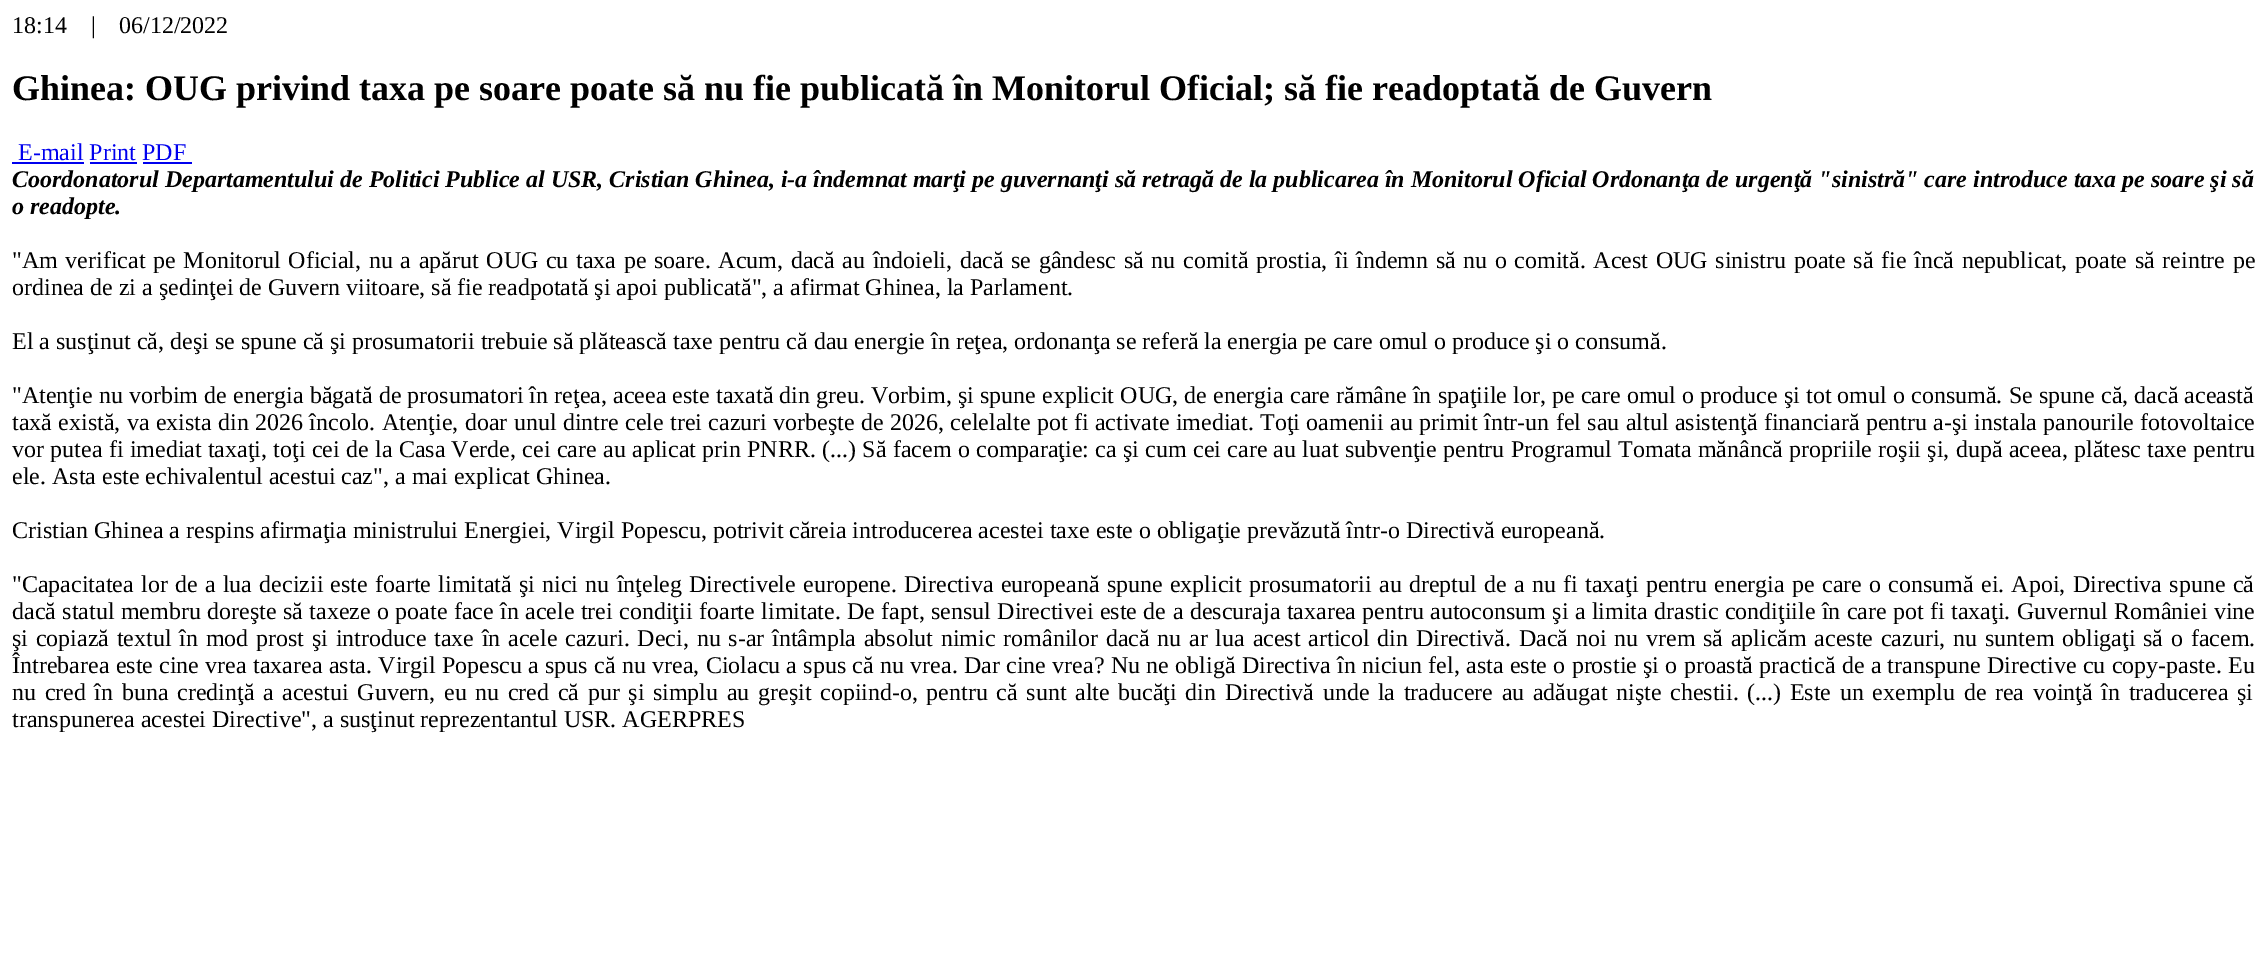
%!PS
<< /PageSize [2266 958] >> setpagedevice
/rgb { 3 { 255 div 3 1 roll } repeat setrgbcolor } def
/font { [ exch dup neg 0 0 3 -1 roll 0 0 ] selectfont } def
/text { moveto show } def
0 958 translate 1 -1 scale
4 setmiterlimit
255 255 255 rgb
0 0 2266 958 rectfill
0 0 238 rgb
12 162 72 2 rectfill
90 162 47 2 rectfill
143 162 49 2 rectfill
/LiberationSerif-Regular 24 font
0 0 0 rgb
(18:14) 12 33 text
(|) 91 33 text
(06/12/2022) 119 33 text
/LiberationSerif-Bold 36 font
(Ghinea: OUG privind taxa pe soare poate să nu fie publicată în Monitorul Oficial; să fie readoptată de Guvern) 12 100 text
/LiberationSerif-Regular 24 font
0 0 238 rgb
(E-mail Print PDF) 18 160 text
/LiberationSerif-BoldItalic 24 font
0 0 0 rgb
(Coordonatorul Departamentului de Politici Publice al USR, Cristian Ghinea, i-a îndemnat marţi pe guvernanţi să retragă de la publicarea în Monitorul Oficial Ordonanţa de urgenţă "sinistră" care introduce taxa pe soare şi să) 12 187 text
(o readopte.) 12 214 text
/LiberationSerif-Regular 24 font
12 268 moveto 1.65 0 32 ("Am verificat pe Monitorul Oficial, nu a apărut OUG cu taxa pe soare. Acum, dacă au îndoieli, dacă se gândesc să nu comită prostia, îi îndemn să nu o comită. Acest OUG sinistru poate să fie încă nepublicat, poate să reintre pe) widthshow
(ordinea de zi a şedinţei de Guvern viitoare, să fie readpotată şi apoi publicată", a afirmat Ghinea, la Parlament.) 12 295 text
(El a susţinut că, deşi se spune că şi prosumatorii trebuie să plătească taxe pentru că dau energie în reţea, ordonanţa se referă la energia pe care omul o produce şi o consumă.) 12 349 text
12 403 moveto 0.15 0 32 ("Atenţie nu vorbim de energia băgată de prosumatori în reţea, aceea este taxată din greu. Vorbim, şi spune explicit OUG, de energia care rămâne în spaţiile lor, pe care omul o produce şi tot omul o consumă. Se spune că, dacă această) widthshow
12 430 moveto 0.35 0 32 (taxă există, va exista din 2026 încolo. Atenţie, doar unul dintre cele trei cazuri vorbeşte de 2026, celelalte pot fi activate imediat. Toţi oamenii au primit într-un fel sau altul asistenţă financiară pentru a-şi instala panourile fotovoltaice) widthshow
12 457 moveto 0.3 0 32 (vor putea fi imediat taxaţi, toţi cei de la Casa Verde, cei care au aplicat prin PNRR. \(...\) Să facem o comparaţie: ca şi cum cei care au luat subvenţie pentru Programul Tomata mănâncă propriile roşii şi, după aceea, plătesc taxe pentru) widthshow
(ele. Asta este echivalentul acestui caz", a mai explicat Ghinea.) 12 484 text
(Cristian Ghinea a respins afirmaţia ministrului Energiei, Virgil Popescu, potrivit căreia introducerea acestei taxe este o obligaţie prevăzută într-o Directivă europeană.) 12 538 text
12 592 moveto 1.25 0 32 ("Capacitatea lor de a lua decizii este foarte limitată şi nici nu înţeleg Directivele europene. Directiva europeană spune explicit prosumatorii au dreptul de a nu fi taxaţi pentru energia pe care o consumă ei. Apoi, Directiva spune că) widthshow
12 619 moveto 0.4 0 32 (dacă statul membru doreşte să taxeze o poate face în acele trei condiţii foarte limitate. De fapt, sensul Directivei este de a descuraja taxarea pentru autoconsum şi a limita drastic condiţiile în care pot fi taxaţi. Guvernul României vine) widthshow
12 646 moveto 1.75 0 32 (şi copiază textul în mod prost şi introduce taxe în acele cazuri. Deci, nu s-ar întâmpla absolut nimic românilor dacă nu ar lua acest articol din Directivă. Dacă noi nu vrem să aplicăm aceste cazuri, nu suntem obligaţi să o facem.) widthshow
12 673 moveto 0.3 0 32 (Întrebarea este cine vrea taxarea asta. Virgil Popescu a spus că nu vrea, Ciolacu a spus că nu vrea. Dar cine vrea? Nu ne obligă Directiva în niciun fel, asta este o prostie şi o proastă practică de a transpune Directive cu copy-paste. Eu) widthshow
12 700 moveto 2.6 0 32 (nu cred în buna credinţă a acestui Guvern, eu nu cred că pur şi simplu au greşit copiind-o, pentru că sunt alte bucăţi din Directivă unde la traducere au adăugat nişte chestii. \(...\) Este un exemplu de rea voinţă în traducerea şi) widthshow
(transpunerea acestei Directive", a susţinut reprezentantul USR. AGERPRES) 12 727 text
showpage
